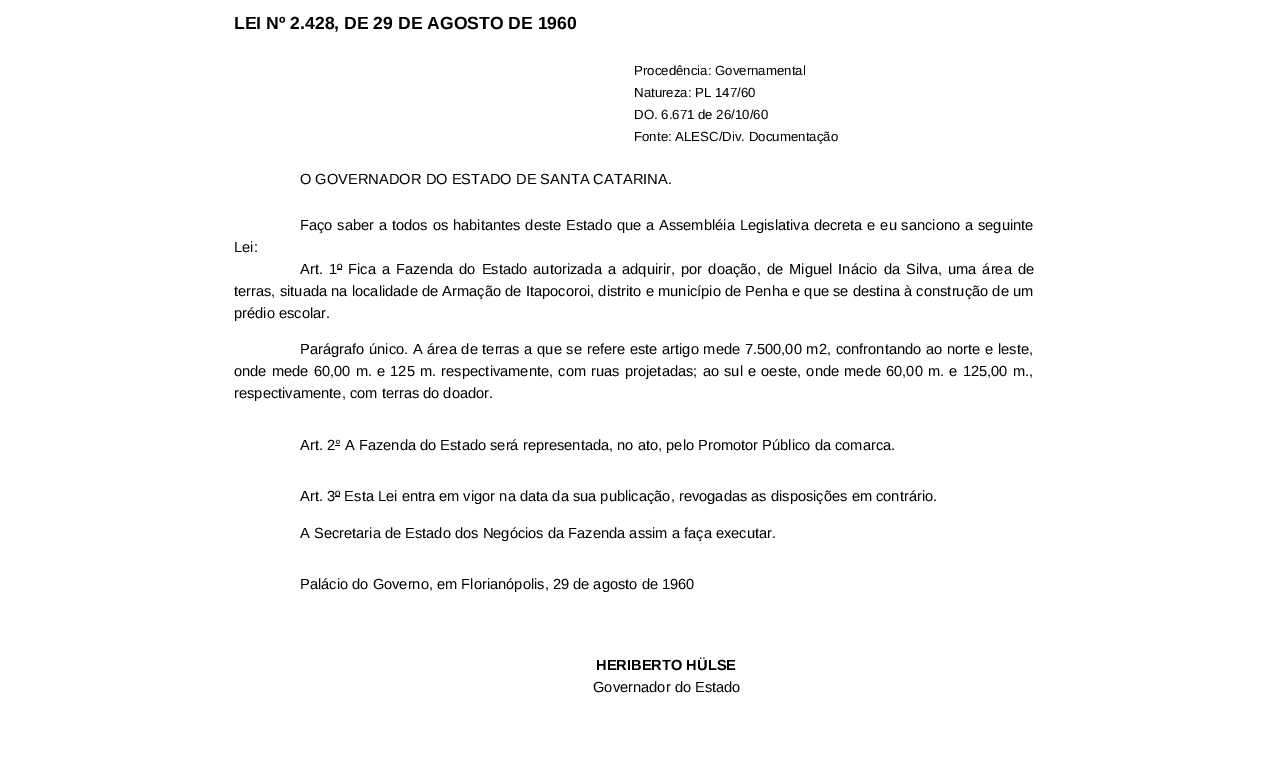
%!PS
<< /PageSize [1267 758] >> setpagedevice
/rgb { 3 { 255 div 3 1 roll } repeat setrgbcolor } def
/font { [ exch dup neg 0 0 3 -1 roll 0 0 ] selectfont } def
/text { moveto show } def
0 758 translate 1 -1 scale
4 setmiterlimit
255 255 255 rgb
0 0 1267 758 rectfill
0 0 0 rgb
337 269 5 1 rectfill
335 445 5 1 rectfill
335 496 5 1 rectfill
/LiberationSans-Bold 17.6 font
(LEI Nº 2.428, DE 29 DE AGOSTO DE 1960) 234 29 text
/LiberationSans-Regular 13.25 font
(Procedência: Governamental) 634 75 text
(Natureza: PL 147/60) 634 97 text
(DO. 6.671 de 26/10/60) 634 119 text
(Fonte: ALESC/Div. Documentação) 634 141 text
/LiberationSans-Regular 14.67 font
(O GOVERNADOR DO ESTADO DE SANTA CATARINA.) 300 184 text
300 230 moveto 0.75 0 32 (Faço saber a todos os habitantes deste Estado que a Assembléia Legislativa decreta e eu sanciono a seguinte) widthshow
(Lei:) 234 252 text
300 274 moveto 2 0 32 (Art. 1) widthshow
(º) 337 274 text
348 274 moveto 2 0 32 (Fica a Fazenda do Estado autorizada a adquirir, por doação, de Miguel Inácio da Silva, uma área de) widthshow
234 296 moveto 0.1 0 32 (terras, situada na localidade de Armação de Itapocoroi, distrito e município de Penha e que se destina à construção de um) widthshow
(prédio escolar.) 234 318 text
300 354 moveto 0.6 0 32 (Parágrafo único. A área de terras a que se refere este artigo mede 7.500,00 m2, confrontando ao norte e leste,) widthshow
234 376 moveto 1.1 0 32 (onde mede 60,00 m. e 125 m. respectivamente, com ruas projetadas; ao sul e oeste, onde mede 60,00 m. e 125,00 m.,) widthshow
(respectivamente, com terras do doador.) 234 398 text
(Art. 2° A Fazenda do Estado será representada, no ato, pelo Promotor Público da comarca.) 300 450 text
(Art. 3º Esta Lei entra em vigor na data da sua publicação, revogadas as disposições em contrário.) 300 501 text
(A Secretaria de Estado dos Negócios da Fazenda assim a faça executar.) 300 538 text
(Palácio do Governo, em Florianópolis, 29 de agosto de 1960) 300 589 text
/LiberationSans-Bold 14.67 font
(HERIBERTO HÜLSE) 596 670 text
/LiberationSans-Regular 14.67 font
(Governador do Estado) 593 692 text
showpage
